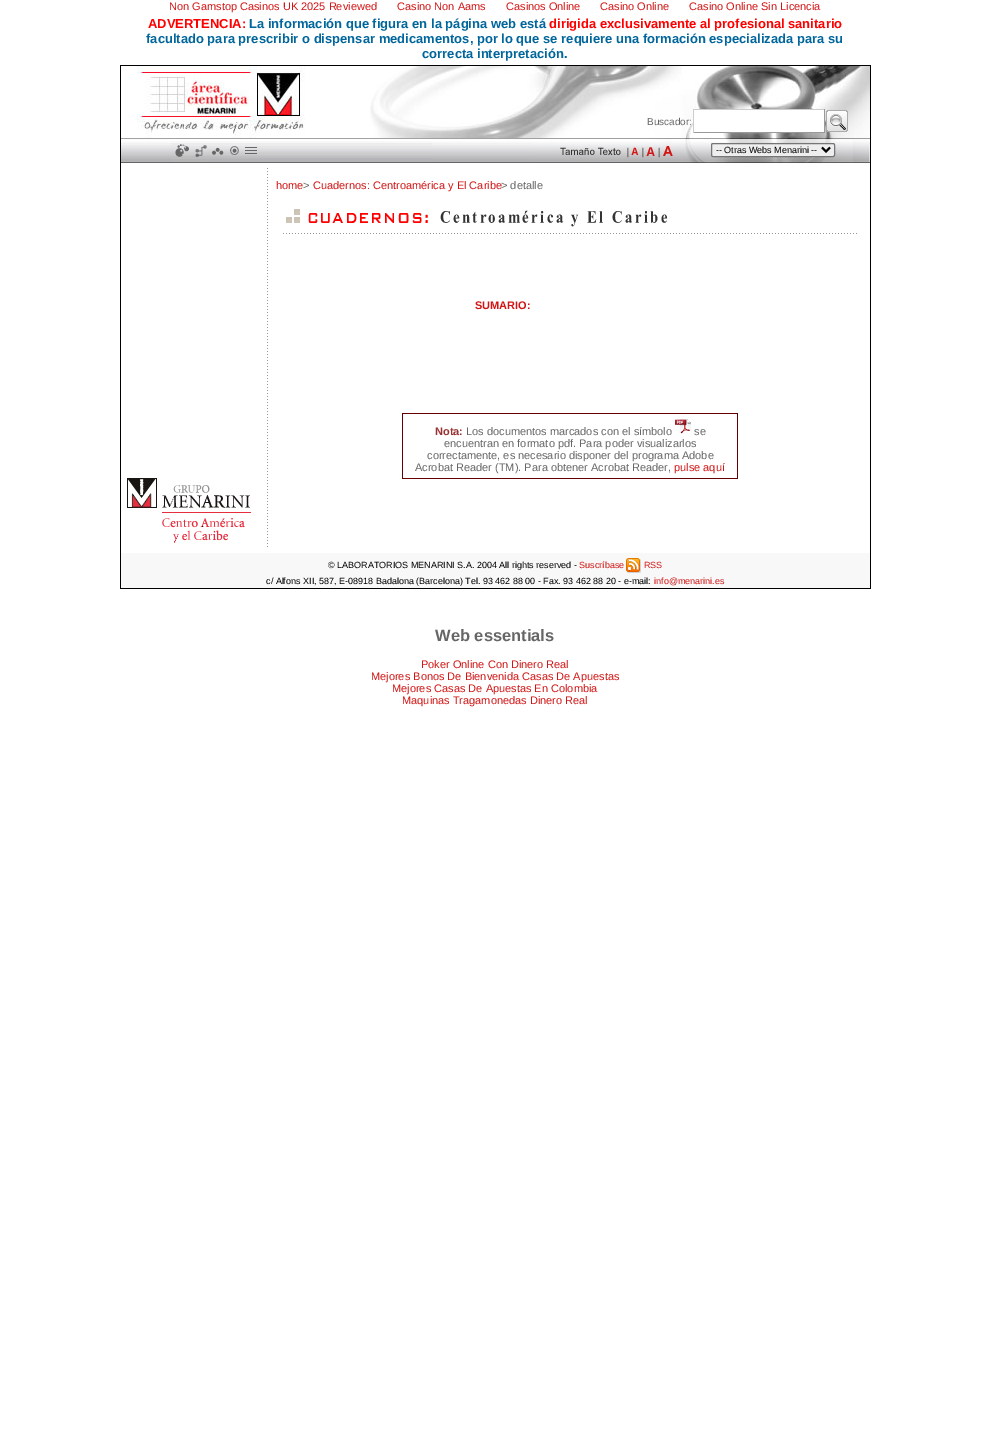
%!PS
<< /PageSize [990 1456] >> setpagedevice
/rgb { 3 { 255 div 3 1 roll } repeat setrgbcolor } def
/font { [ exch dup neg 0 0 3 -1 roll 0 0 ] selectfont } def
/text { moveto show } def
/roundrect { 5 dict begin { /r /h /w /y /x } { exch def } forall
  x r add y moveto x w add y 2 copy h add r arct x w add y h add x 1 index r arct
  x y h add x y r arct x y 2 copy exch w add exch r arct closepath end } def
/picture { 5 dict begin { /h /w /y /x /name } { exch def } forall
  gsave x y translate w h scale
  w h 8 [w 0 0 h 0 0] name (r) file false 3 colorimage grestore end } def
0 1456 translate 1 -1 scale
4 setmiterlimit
255 255 255 rgb
0 0 990 1456 rectfill
0 0 0 rgb
120 65 751 524 rectfill
255 255 255 rgb
121 66 749 487 rectfill
(img_03.rgb) 370 66 500 72 picture
694 110 130 22 rectfill
204 204 204 rgb
693 109 132 1 rectfill
153 153 153 rgb
824 109 1 24 rectfill
693 132 132 1 rectfill
204 204 204 rgb
693 109 1 24 rectfill
(img_01.rgb) 826 110 22 22 picture
(img_02.rgb) 137 66 168 72 picture
(img_04.rgb) 121 138 50 25 picture
(img_05.rgb) 171 138 21 25 picture
(img_06.rgb) 192 138 17 25 picture
(img_07.rgb) 209 138 18 25 picture
(img_08.rgb) 227 138 15 25 picture
(img_09.rgb) 242 138 18 25 picture
(img_10.rgb) 260 138 172 25 picture
(img_11.rgb) 432 138 100 25 picture
(img_12.rgb) 532 138 95 25 picture
(img_13.rgb) 627 138 15 25 picture
(img_14.rgb) 642 138 17 25 picture
(img_15.rgb) 659 138 18 25 picture
(img_16.rgb) 677 138 193 25 picture
238 238 238 rgb
711.5 143.5 123 13 1.5 roundrect gsave fill grestore
118 118 118 rgb
stroke
0 0 0 rgb
2 setlinewidth
822 147.5 moveto 4 4 rlineto 4 -4 rlineto stroke
(img_17.rgb) 267 168 1 379 picture
(img_18.rgb) 286 209 382 18 picture
(img_19.rgb) 283 233 574 1 picture
102 0 0 rgb
402 413 336 66 rectfill
255 255 255 rgb
403 414 334 64 rectfill
(img_20.rgb) 675 419 16 15 picture
(img_21.rgb) 127 478 124 65 picture
248 248 248 rgb
121 553 749 35 rectfill
(img_22.rgb) 626 558 15 15 picture
/LiberationSans-Regular 11 font
209 21 20 rgb
(Non Gamstop Casinos UK 2025 Reviewed) 169 10 text
(Casino Non Aams) 397 10 text
(Casinos Online) 506 10 text
(Casino Online) 600 10 text
(Casino Online Sin Licencia) 689 10 text
/LiberationSans-Bold 13 font
255 0 0 rgb
(ADVERTENCIA:) 148 28 text
1 102 156 rgb
(La información que figura en la página web está) 249 28 text
255 0 0 rgb
(dirigida exclusivamente al profesional sanitario) 549 28 text
1 102 156 rgb
(facultado para prescribir o dispensar medicamentos, por lo que se requiere una formación especializada para su) 146 43 text
(correcta interpretación.) 422 58 text
/LiberationSans-Regular 10 font
102 102 102 rgb
(Buscador:) 647 125 text
/LiberationSans-Regular 9 font
0 0 0 rgb
(-- Otras Webs Menarini --) 716 153 text
/LiberationSans-Regular 11 font
209 21 20 rgb
(home) 276 189 text
102 102 102 rgb
(>) 303 189 text
209 21 20 rgb
(Cuadernos: Centroamérica y El Caribe) 313 189 text
102 102 102 rgb
(> detalle) 501 189 text
/LiberationSans-Bold 11 font
209 21 20 rgb
(SUMARIO:) 475 309 text
153 51 51 rgb
(Nota:) 435 435 text
/LiberationSans-Regular 11 font
102 102 102 rgb
(Los documentos marcados con el símbolo) 466 435 text
(se) 694 435 text
(encuentran en formato pdf. Para poder visualizarlos) 444 447 text
(correctamente, es necesario disponer del programa Adobe) 427 459 text
(Acrobat Reader \(TM\). Para obtener Acrobat Reader,) 415 471 text
209 21 20 rgb
(pulse aquí) 674 471 text
/LiberationSans-Regular 9 font
0 0 0 rgb
(© LABORATORIOS MENARINI S.A. 2004 All rights reserved -) 328 568 text
209 21 20 rgb
(Suscríbase) 579 568 text
(RSS) 644 568 text
0 0 0 rgb
(c/ Alfons XII, 587, E-08918 Badalona \(Barcelona\) Tel. 93 462 88 00 - Fax. 93 462 88 20 - e-mail:) 266 584 text
209 21 20 rgb
(info@menarini.es) 654 584 text
/LiberationSans-Bold 16.5 font
102 102 102 rgb
(Web essentials) 435 641 text
/LiberationSans-Regular 11 font
209 21 20 rgb
(Poker Online Con Dinero Real) 421 668 text
(Mejores Bonos De Bienvenida Casas De Apuestas) 371 680 text
(Mejores Casas De Apuestas En Colombia) 392 692 text
(Maquinas Tragamonedas Dinero Real) 402 704 text
showpage
